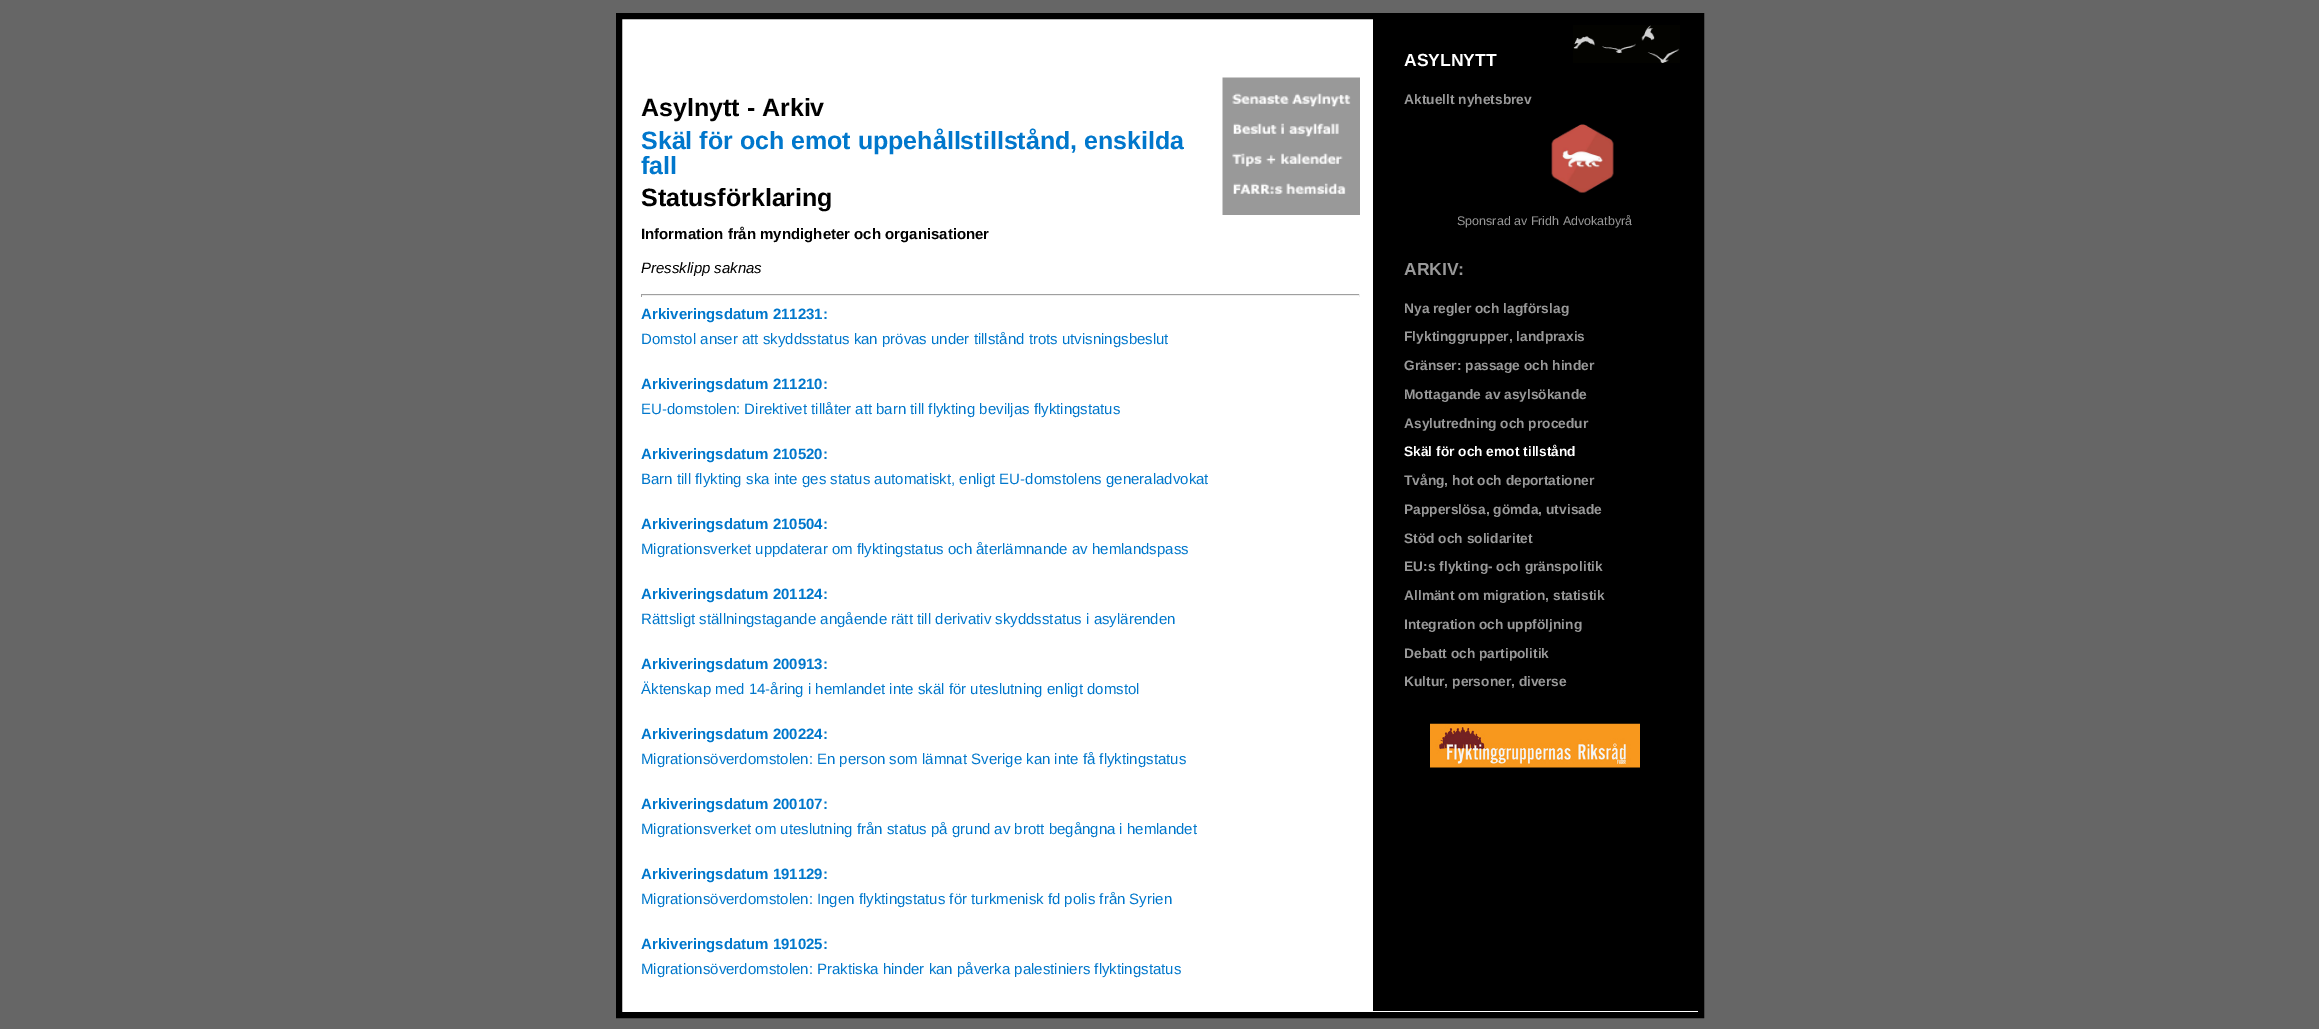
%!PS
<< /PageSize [2319 1029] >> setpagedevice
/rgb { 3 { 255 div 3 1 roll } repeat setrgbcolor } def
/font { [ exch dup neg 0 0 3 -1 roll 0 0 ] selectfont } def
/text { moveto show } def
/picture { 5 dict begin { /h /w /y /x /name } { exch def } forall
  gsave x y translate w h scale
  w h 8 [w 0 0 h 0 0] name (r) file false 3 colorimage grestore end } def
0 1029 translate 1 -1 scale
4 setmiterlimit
102 102 102 rgb
0 0 2319 1029 rectfill
255 255 255 rgb
619 16 moveto 1082 0 rlineto 0 999 rlineto -1082 0 rlineto closepath gsave fill grestore
0 0 0 rgb
6 setlinewidth
stroke
(img_01.rgb) 1222 77 138 138 picture
159 159 159 rgb
641 294 719 1 rectfill
238 238 238 rgb
1359 294 1 3 rectfill
641 295 719 1 rectfill
159 159 159 rgb
641 294 1 3 rectfill
0 0 0 rgb
1373 19 325 992 rectfill
(img_02.rgb) 1573 25 107 38 picture
(img_03.rgb) 1551 124 63 69 picture
(img_04.rgb) 1430 723 210 45 picture
/LiberationSans-Bold 25 font
(Asylnytt - Arkiv) 641 116 text
0 119 204 rgb
(Skäl för och emot uppehållstillstånd, enskilda) 641 149 text
(fall) 641 174 text
0 0 0 rgb
(Statusförklaring) 641 206 text
/LiberationSans-Bold 15 font
(Information från myndigheter och organisationer) 641 239 text
/LiberationSans-Italic 15 font
(Pressklipp saknas) 641 273 text
/LiberationSans-Bold 15 font
0 119 204 rgb
(Arkiveringsdatum 211231:) 641 319 text
/LiberationSans-Regular 15 font
(Domstol anser att skyddsstatus kan prövas under tillstånd trots utvisningsbeslut) 641 344 text
/LiberationSans-Bold 15 font
(Arkiveringsdatum 211210:) 641 389 text
/LiberationSans-Regular 15 font
(EU-domstolen: Direktivet tillåter att barn till flykting beviljas flyktingstatus) 641 414 text
/LiberationSans-Bold 15 font
(Arkiveringsdatum 210520:) 641 459 text
/LiberationSans-Regular 15 font
(Barn till flykting ska inte ges status automatiskt, enligt EU-domstolens generaladvokat) 641 484 text
/LiberationSans-Bold 15 font
(Arkiveringsdatum 210504:) 641 529 text
/LiberationSans-Regular 15 font
(Migrationsverket uppdaterar om flyktingstatus och återlämnande av hemlandspass) 641 554 text
/LiberationSans-Bold 15 font
(Arkiveringsdatum 201124:) 641 599 text
/LiberationSans-Regular 15 font
(Rättsligt ställningstagande angående rätt till derivativ skyddsstatus i asylärenden) 641 624 text
/LiberationSans-Bold 15 font
(Arkiveringsdatum 200913:) 641 669 text
/LiberationSans-Regular 15 font
(Äktenskap med 14-åring i hemlandet inte skäl för uteslutning enligt domstol) 641 694 text
/LiberationSans-Bold 15 font
(Arkiveringsdatum 200224:) 641 739 text
/LiberationSans-Regular 15 font
(Migrationsöverdomstolen: En person som lämnat Sverige kan inte få flyktingstatus) 641 764 text
/LiberationSans-Bold 15 font
(Arkiveringsdatum 200107:) 641 809 text
/LiberationSans-Regular 15 font
(Migrationsverket om uteslutning från status på grund av brott begångna i hemlandet) 641 834 text
/LiberationSans-Bold 15 font
(Arkiveringsdatum 191129:) 641 879 text
/LiberationSans-Regular 15 font
(Migrationsöverdomstolen: Ingen flyktingstatus för turkmenisk fd polis från Syrien) 641 904 text
/LiberationSans-Bold 15 font
(Arkiveringsdatum 191025:) 641 949 text
/LiberationSans-Regular 15 font
(Migrationsöverdomstolen: Praktiska hinder kan påverka palestiniers flyktingstatus) 641 974 text
/LiberationSans-Bold 17.5 font
255 255 255 rgb
(ASYLNYTT) 1404 66 text
/LiberationSans-Bold 13.75 font
153 153 153 rgb
(Aktuellt nyhetsbrev) 1404 104 text
/LiberationSans-Regular 12.5 font
(Sponsrad av Fridh Advokatbyrå) 1457 225 text
/LiberationSans-Bold 17.5 font
(ARKIV:) 1404 275 text
/LiberationSans-Bold 13.75 font
(Nya regler och lagförslag) 1404 313 text
(Flyktinggrupper, landpraxis) 1404 341 text
(Gränser: passage och hinder) 1404 370 text
(Mottagande av asylsökande) 1404 399 text
(Asylutredning och procedur) 1404 428 text
255 255 255 rgb
(Skäl för och emot tillstånd) 1404 456 text
153 153 153 rgb
(Tvång, hot och deportationer) 1404 485 text
(Papperslösa, gömda, utvisade) 1404 514 text
(Stöd och solidaritet) 1404 543 text
(EU:s flykting- och gränspolitik) 1404 571 text
(Allmänt om migration, statistik) 1404 600 text
(Integration och uppföljning) 1404 629 text
(Debatt och partipolitik) 1404 658 text
(Kultur, personer, diverse) 1404 686 text
showpage
